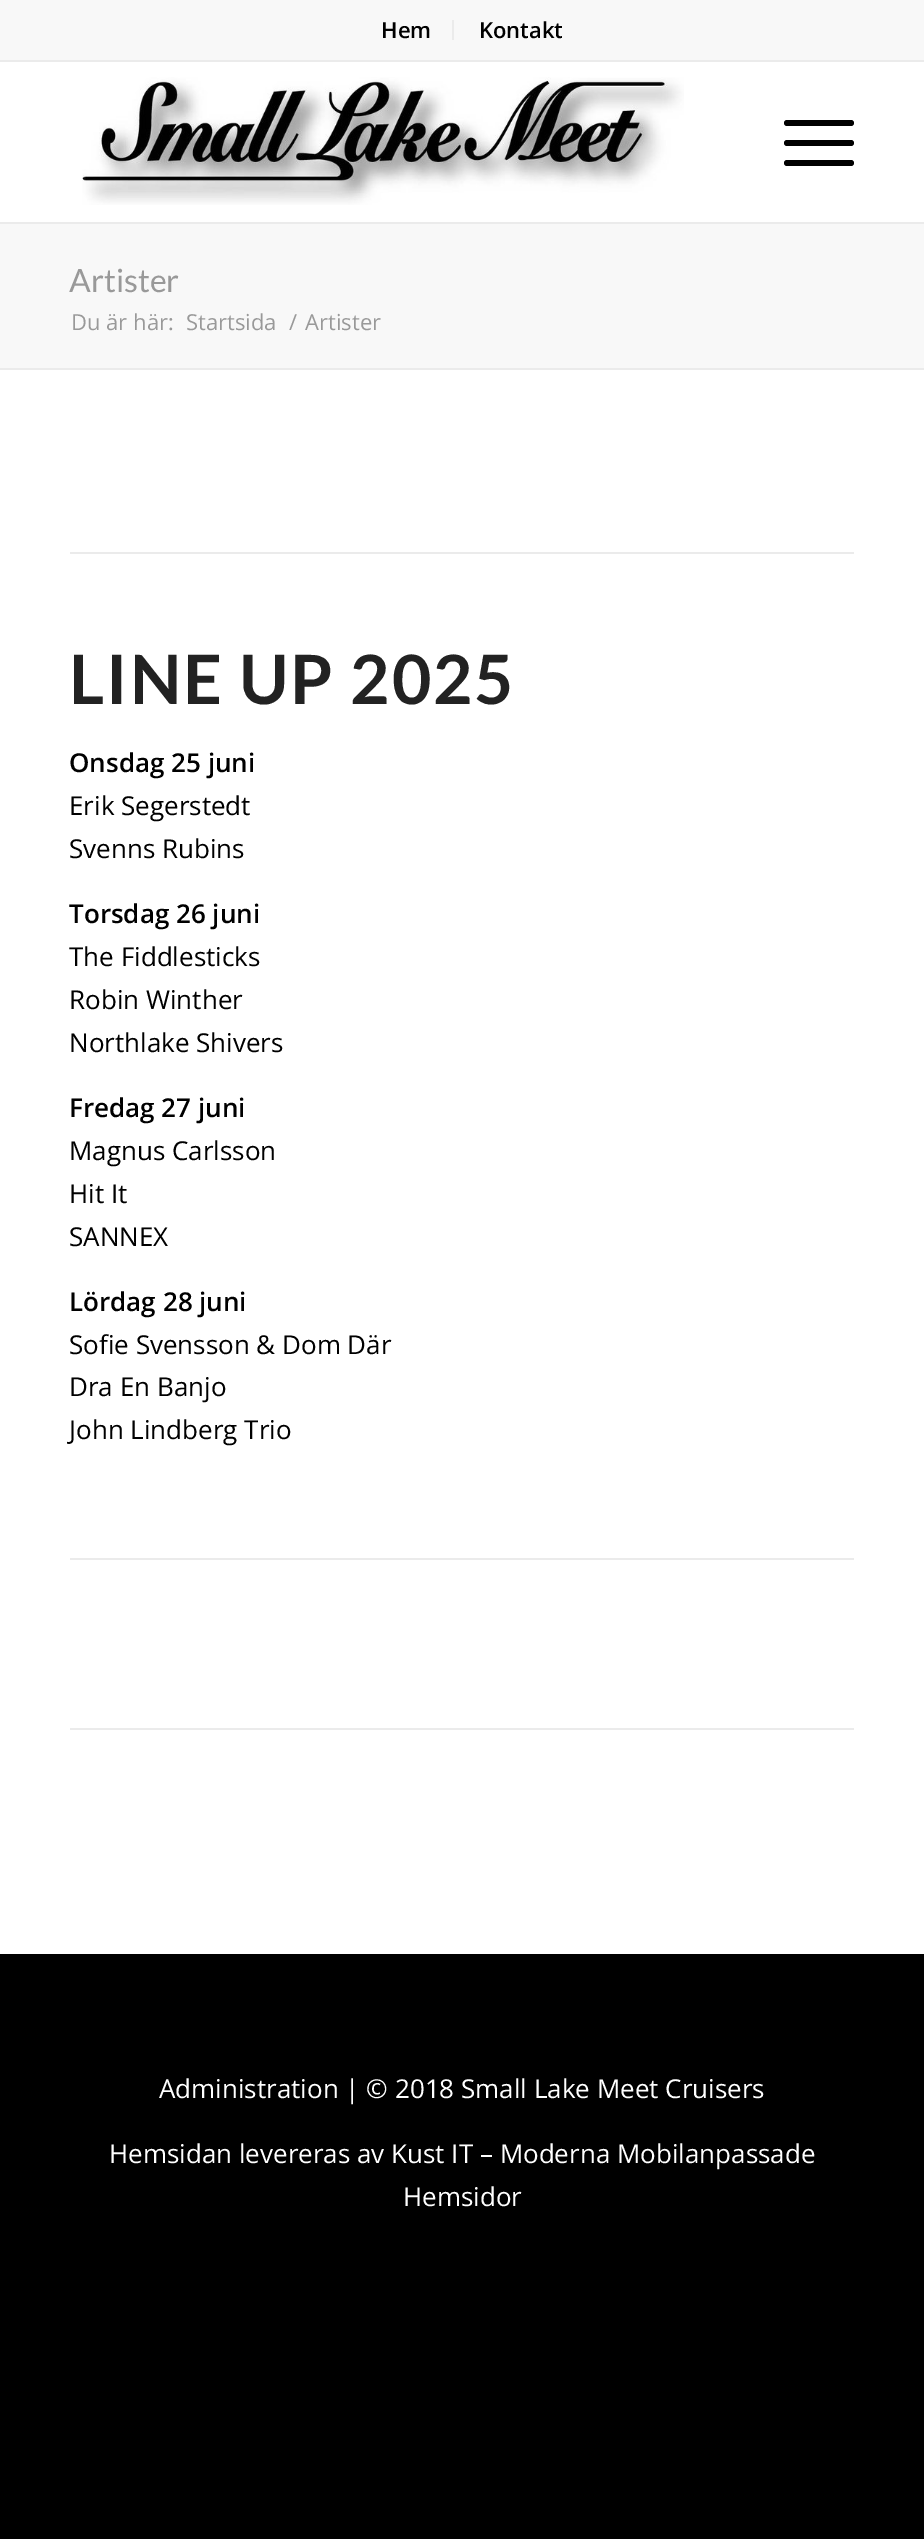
%!PS
<< /PageSize [924 2539] >> setpagedevice
/rgb { 3 { 255 div 3 1 roll } repeat setrgbcolor } def
/font { [ exch dup neg 0 0 3 -1 roll 0 0 ] selectfont } def
/text { moveto show } def
/roundrect { 5 dict begin { /r /h /w /y /x } { exch def } forall
  x r add y moveto x w add y 2 copy h add r arct x w add y h add x 1 index r arct
  x y h add x y r arct x y 2 copy exch w add exch r arct closepath end } def
/picture { 5 dict begin { /h /w /y /x /name } { exch def } forall
  gsave x y translate w h scale
  w h 8 [w 0 0 h 0 0] name (r) file false 3 colorimage grestore end } def
0 2539 translate 1 -1 scale
4 setmiterlimit
0 0 0 rgb
0 0 924 2539 rectfill
255 255 255 rgb
0 62 924 1892 rectfill
248 248 248 rgb
0 0 924 60 rectfill
235 235 235 rgb
0 60 924 2 rectfill
452 20 2 20 rectfill
0 222 924 2 rectfill
(img_01.rgb) 82 77 602 128 picture
0 0 0 rgb
784 140 70 6 3 roundrect fill
784 120 70 6 3 roundrect fill
784 160 70 6 3 roundrect fill
248 248 248 rgb
0 224 924 144 rectfill
235 235 235 rgb
0 368 924 2 rectfill
70 552 784 2 rectfill
70 1558 784 2 rectfill
70 1728 784 2 rectfill
/OpenSans-SemiBold 22 font
0 0 0 rgb
(Hem) 381 38 text
(Kontakt) 479 38 text
/Lato-Regular 32 font
153 153 153 rgb
(Artister) 69 292 text
/OpenSans-Regular 22 font
(Du är här:) 71 330 text
(Startsida) 186 330 text
(/) 289 330 text
(Artister) 305 330 text
/Lato-Bold 68 font
34 34 34 rgb
69 704 moveto 2 0 (LINE UP 2025) ashow
/OpenSans-SemiBold 26 font
0 0 0 rgb
(Onsdag 25 juni) 69 772 text
/OpenSans-Regular 26 font
(Erik Segerstedt) 69 815 text
(Svenns Rubins) 69 858 text
/OpenSans-SemiBold 26 font
(Torsdag 26 juni) 69 923 text
/OpenSans-Regular 26 font
(The Fiddlesticks) 69 966 text
(Robin Winther) 69 1009 text
(Northlake Shivers) 69 1052 text
/OpenSans-SemiBold 26 font
(Fredag 27 juni) 69 1117 text
/OpenSans-Regular 26 font
(Magnus Carlsson) 69 1160 text
(Hit It) 69 1203 text
(SANNEX) 69 1246 text
/OpenSans-SemiBold 26 font
(Lördag 28 juni) 69 1311 text
/OpenSans-Regular 26 font
(Sofie Svensson & Dom Där) 69 1354 text
(Dra En Banjo) 69 1396 text
(John Lindberg Trio) 69 1439 text
255 255 255 rgb
(Administration | © 2018 Small Lake Meet Cruisers) 159 2098 text
(Hemsidan levereras av Kust IT – Moderna Mobilanpassade) 109 2163 text
(Hemsidor) 403 2206 text
showpage
